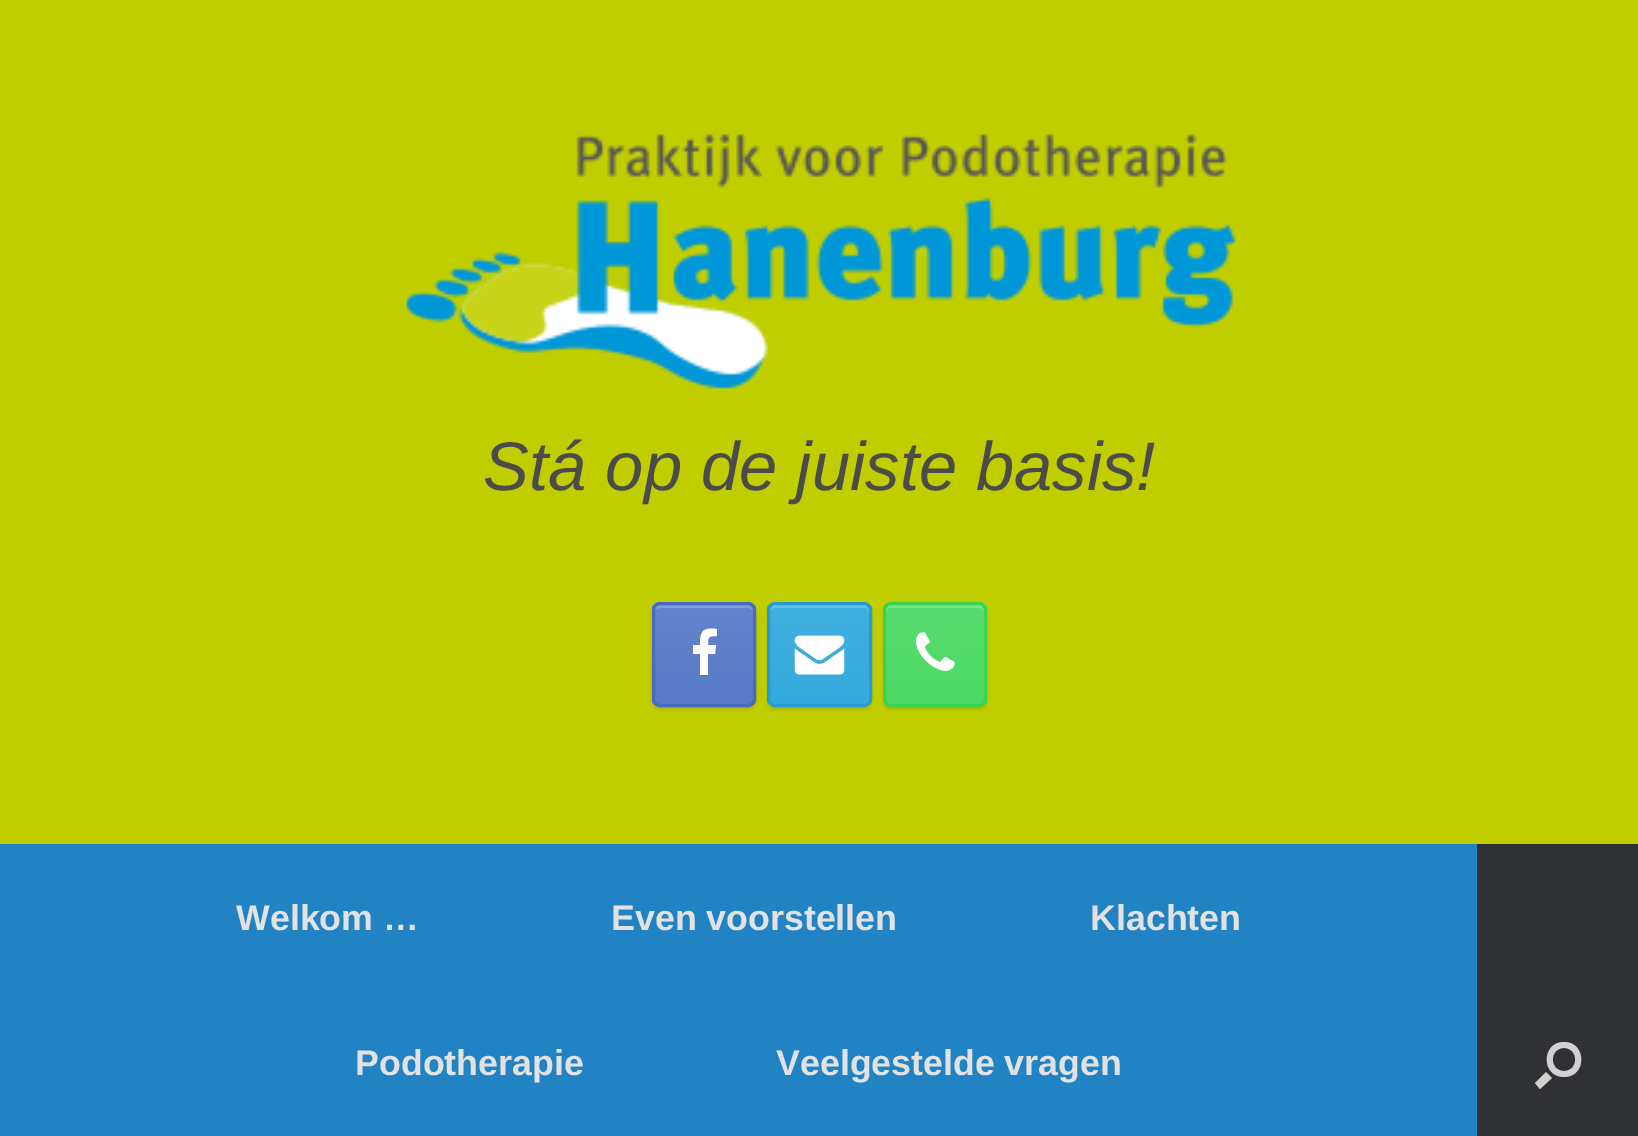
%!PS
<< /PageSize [1638 1136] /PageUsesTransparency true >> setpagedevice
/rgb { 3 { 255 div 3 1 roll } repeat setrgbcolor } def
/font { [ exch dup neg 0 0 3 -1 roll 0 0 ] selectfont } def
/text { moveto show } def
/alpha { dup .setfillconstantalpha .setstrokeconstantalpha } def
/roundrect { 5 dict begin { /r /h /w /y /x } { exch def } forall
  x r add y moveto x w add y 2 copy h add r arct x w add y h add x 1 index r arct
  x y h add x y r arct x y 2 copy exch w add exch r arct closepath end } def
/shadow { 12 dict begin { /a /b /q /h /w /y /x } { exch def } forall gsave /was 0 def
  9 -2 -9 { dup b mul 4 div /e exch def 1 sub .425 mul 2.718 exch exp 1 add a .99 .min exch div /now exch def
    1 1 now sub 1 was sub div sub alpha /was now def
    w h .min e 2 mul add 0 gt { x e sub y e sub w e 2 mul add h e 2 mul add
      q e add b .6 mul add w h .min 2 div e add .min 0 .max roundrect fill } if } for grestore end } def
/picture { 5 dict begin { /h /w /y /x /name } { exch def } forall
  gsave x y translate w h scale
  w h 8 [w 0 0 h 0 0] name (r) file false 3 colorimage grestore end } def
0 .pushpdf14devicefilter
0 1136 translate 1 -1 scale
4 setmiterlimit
192 206 0 rgb
0 0 1638 1136 rectfill
(img_01.rgb) 406 134 830 255 picture
0 0 0 rgb
652 605 104 105 8 1.5 0.1 shadow
gsave
652 602 104 105 8 roundrect clip newpath
gsave 652 605 moveto 104 0 rlineto 0 99 rlineto -104 0 rlineto closepath clip newpath
<< /ShadingType 2 /ColorSpace /DeviceRGB /Coords [655 704 655 605] /Extend [true true] /Function << /FunctionType 2 /Domain [0 1] /C0 [0.349 0.478 0.78] /C1 [0.392 0.514 0.796] /N 1 >> >> shfill grestore
grestore
131 156 213 rgb
660 608 moveto 88 0 rlineto 3 0 6 2 6 5 rcurveto 0 -2 rlineto 0 -3 -3 -6 -6 -6 rcurveto -87 0 rlineto -3 0 -6 2 -6 5 rcurveto 1 -1 3 -2 5 -2 rcurveto closepath fill
70 107 193 rgb
3 setlinewidth
653.5 603.5 101 102 6.5 roundrect stroke
255 255 255 rgb
717 629 moveto -15 -2 -17 3 -17 16 rcurveto -7 0 rlineto 0 9 rlineto 7 0 rlineto 0 21 rlineto 8 0 rlineto 0 -21 rlineto 7 0 rlineto 1 -9 rlineto -8 0 rlineto 0 -8 0 -9 9 -9 rcurveto closepath fill
0 0 0 rgb
767 605 105 105 8 1.5 0.1 shadow
gsave
767 602 105 105 8 roundrect clip newpath
gsave 767 605 moveto 105 0 rlineto 0 99 rlineto -105 0 rlineto closepath clip newpath
<< /ShadingType 2 /ColorSpace /DeviceRGB /Coords [770 704 770 605] /Extend [true true] /Function << /FunctionType 2 /Domain [0 1] /C0 [0.204 0.667 0.863] /C1 [0.255 0.686 0.871] /N 1 >> >> shfill grestore
grestore
0.2 alpha
255 255 255 rgb
776 608 moveto 88 0 rlineto 3 0 5 2 5 5 rcurveto 0 -12 -11 -8 -21 -8 rcurveto -58 0 rlineto -9 0 -20 -4 -20 8 rcurveto 0 -3 2 -5 6 -5 rcurveto closepath fill
1 alpha
36 158 210 rgb
768.5 603.5 102 102 6.5 roundrect stroke
(img_02.rgb) 794 635 51 40 picture
0 0 0 rgb
883 605 104 105 8 1.5 0.1 shadow
gsave
883 602 104 105 8 roundrect clip newpath
gsave 883 605 moveto 104 0 rlineto 0 99 rlineto -104 0 rlineto closepath clip newpath
<< /ShadingType 2 /ColorSpace /DeviceRGB /Coords [886 704 886 605] /Extend [true true] /Function << /FunctionType 2 /Domain [0 1] /C0 [0.298 0.851 0.392] /C1 [0.349 0.863 0.435] /N 1 >> >> shfill grestore
grestore
0.2 alpha
255 255 255 rgb
891 608 moveto 88 0 rlineto 9 0 5 17 5 20 rcurveto 0 73 rlineto 1 -1 1 -2 1 -3 rcurveto 0 -87 rlineto 0 -3 -3 -6 -6 -6 rcurveto -87 0 rlineto -3 0 -6 3 -6 6 rcurveto 0 2 rlineto 0 -3 2 -5 5 -5 rcurveto closepath fill
1 alpha
55 213 82 rgb
884.5 603.5 101 102 6.5 roundrect stroke
(img_03.rgb) 915 632 40 39 picture
33 131 196 rgb
0 844 1477 292 rectfill
48 49 52 rgb
1477 844 161 292 rectfill
209 209 209 rgb
1564 1048 moveto 15 0 15 23 0 23 rcurveto -15 0 -15 -23 0 -23 rcurveto closepath 1564 1042 moveto -23 0 -23 35 0 35 rcurveto 23 0 23 -35 0 -35 rcurveto closepath 1546 1072 moveto 6 6 rlineto -12 11 rlineto -5 -6 rlineto closepath fill
/LiberationSans-Italic 68.75 font
75 75 75 rgb
(Stá op de juiste basis!) 483 490 text
/LiberationSans-Bold 35.75 font
226 226 226 rgb
(Welkom …) 236 930 text
(Even voorstellen) 611 930 text
(Klachten) 1090 930 text
(Podotherapie) 355 1075 text
(Veelgestelde vragen) 776 1075 text
.poppdf14devicefilter showpage
